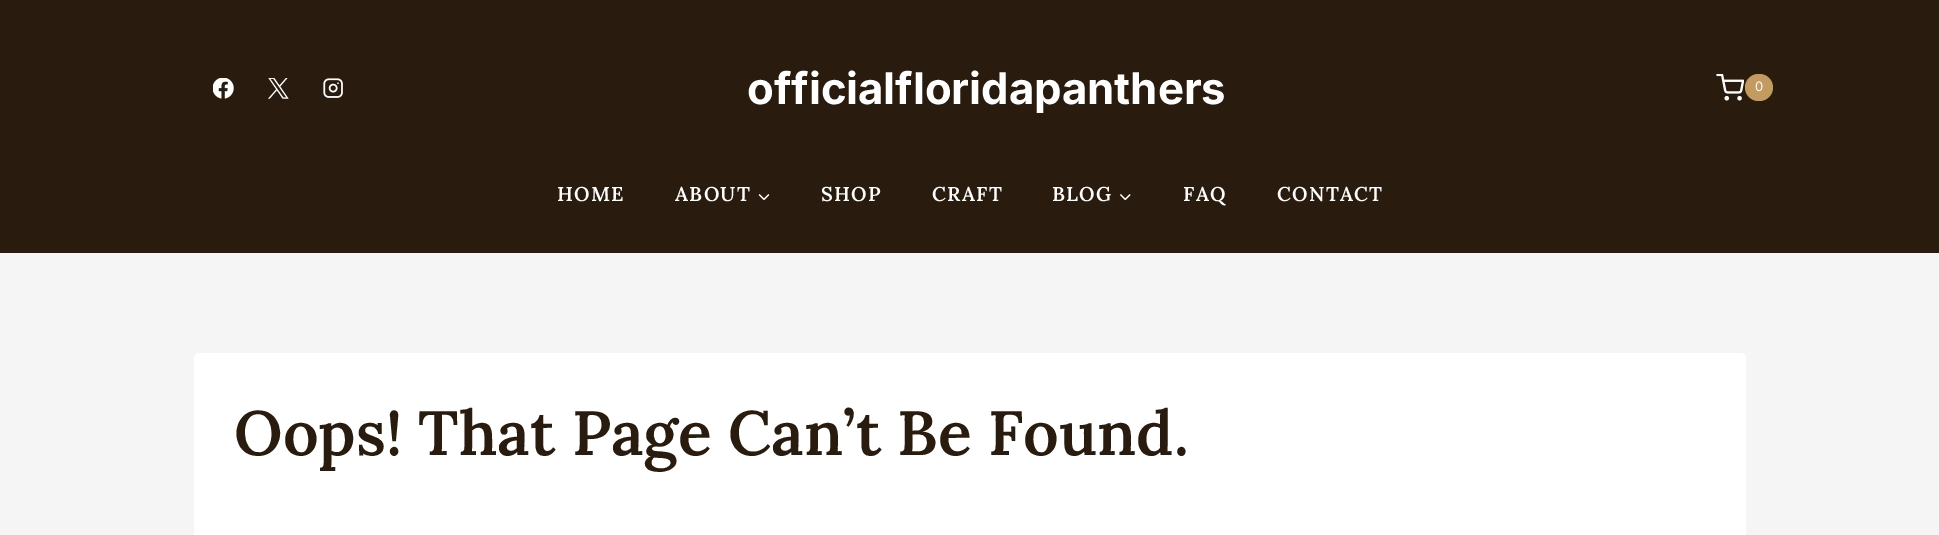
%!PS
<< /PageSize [1939 535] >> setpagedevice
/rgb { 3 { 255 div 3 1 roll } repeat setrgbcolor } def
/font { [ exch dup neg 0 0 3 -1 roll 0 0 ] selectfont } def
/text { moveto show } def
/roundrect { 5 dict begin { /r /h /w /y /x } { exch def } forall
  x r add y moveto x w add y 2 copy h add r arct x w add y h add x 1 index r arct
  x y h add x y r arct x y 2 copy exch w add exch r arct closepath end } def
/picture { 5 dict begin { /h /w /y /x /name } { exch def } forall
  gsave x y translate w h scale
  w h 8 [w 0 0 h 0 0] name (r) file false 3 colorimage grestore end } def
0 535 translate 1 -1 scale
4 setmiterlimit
245 245 245 rgb
0 0 1939 535 rectfill
41 28 14 rgb
0 0 1939 253 rectfill
(img_01.rgb) 213 78 21 21 picture
(img_02.rgb) 268 78 21 21 picture
(img_03.rgb) 323 78 20 20 picture
(img_04.rgb) 1716 74 28 27 picture
195 154 95 rgb
1745 74 28 27 13.5 roundrect fill
(img_05.rgb) 758 194 12 7 picture
(img_06.rgb) 1120 194 11 7 picture
255 255 255 rgb
194 353 1552 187 5 roundrect fill
/Inter-Bold 43.75 font
(officialfloridapanthers) 747 104 text
/Inter-Regular 13 font
(0) 1755 91 text
/Lora-SemiBold 20 font
557 201 moveto 1.25 0 (HOME) ashow
675 201 moveto 1.25 0 (ABOUT) ashow
821 201 moveto 1.25 0 (SHOP) ashow
932 201 moveto 1.25 0 (CRAFT) ashow
1052 201 moveto 1.25 0 (BLOG) ashow
1183 201 moveto 1.25 0 (FAQ) ashow
1277 201 moveto 1.25 0 (CONTACT) ashow
/Lora-SemiBold 62.5 font
41 28 14 rgb
(Oops! That Page Can’t Be Found.) 234 455 text
showpage
